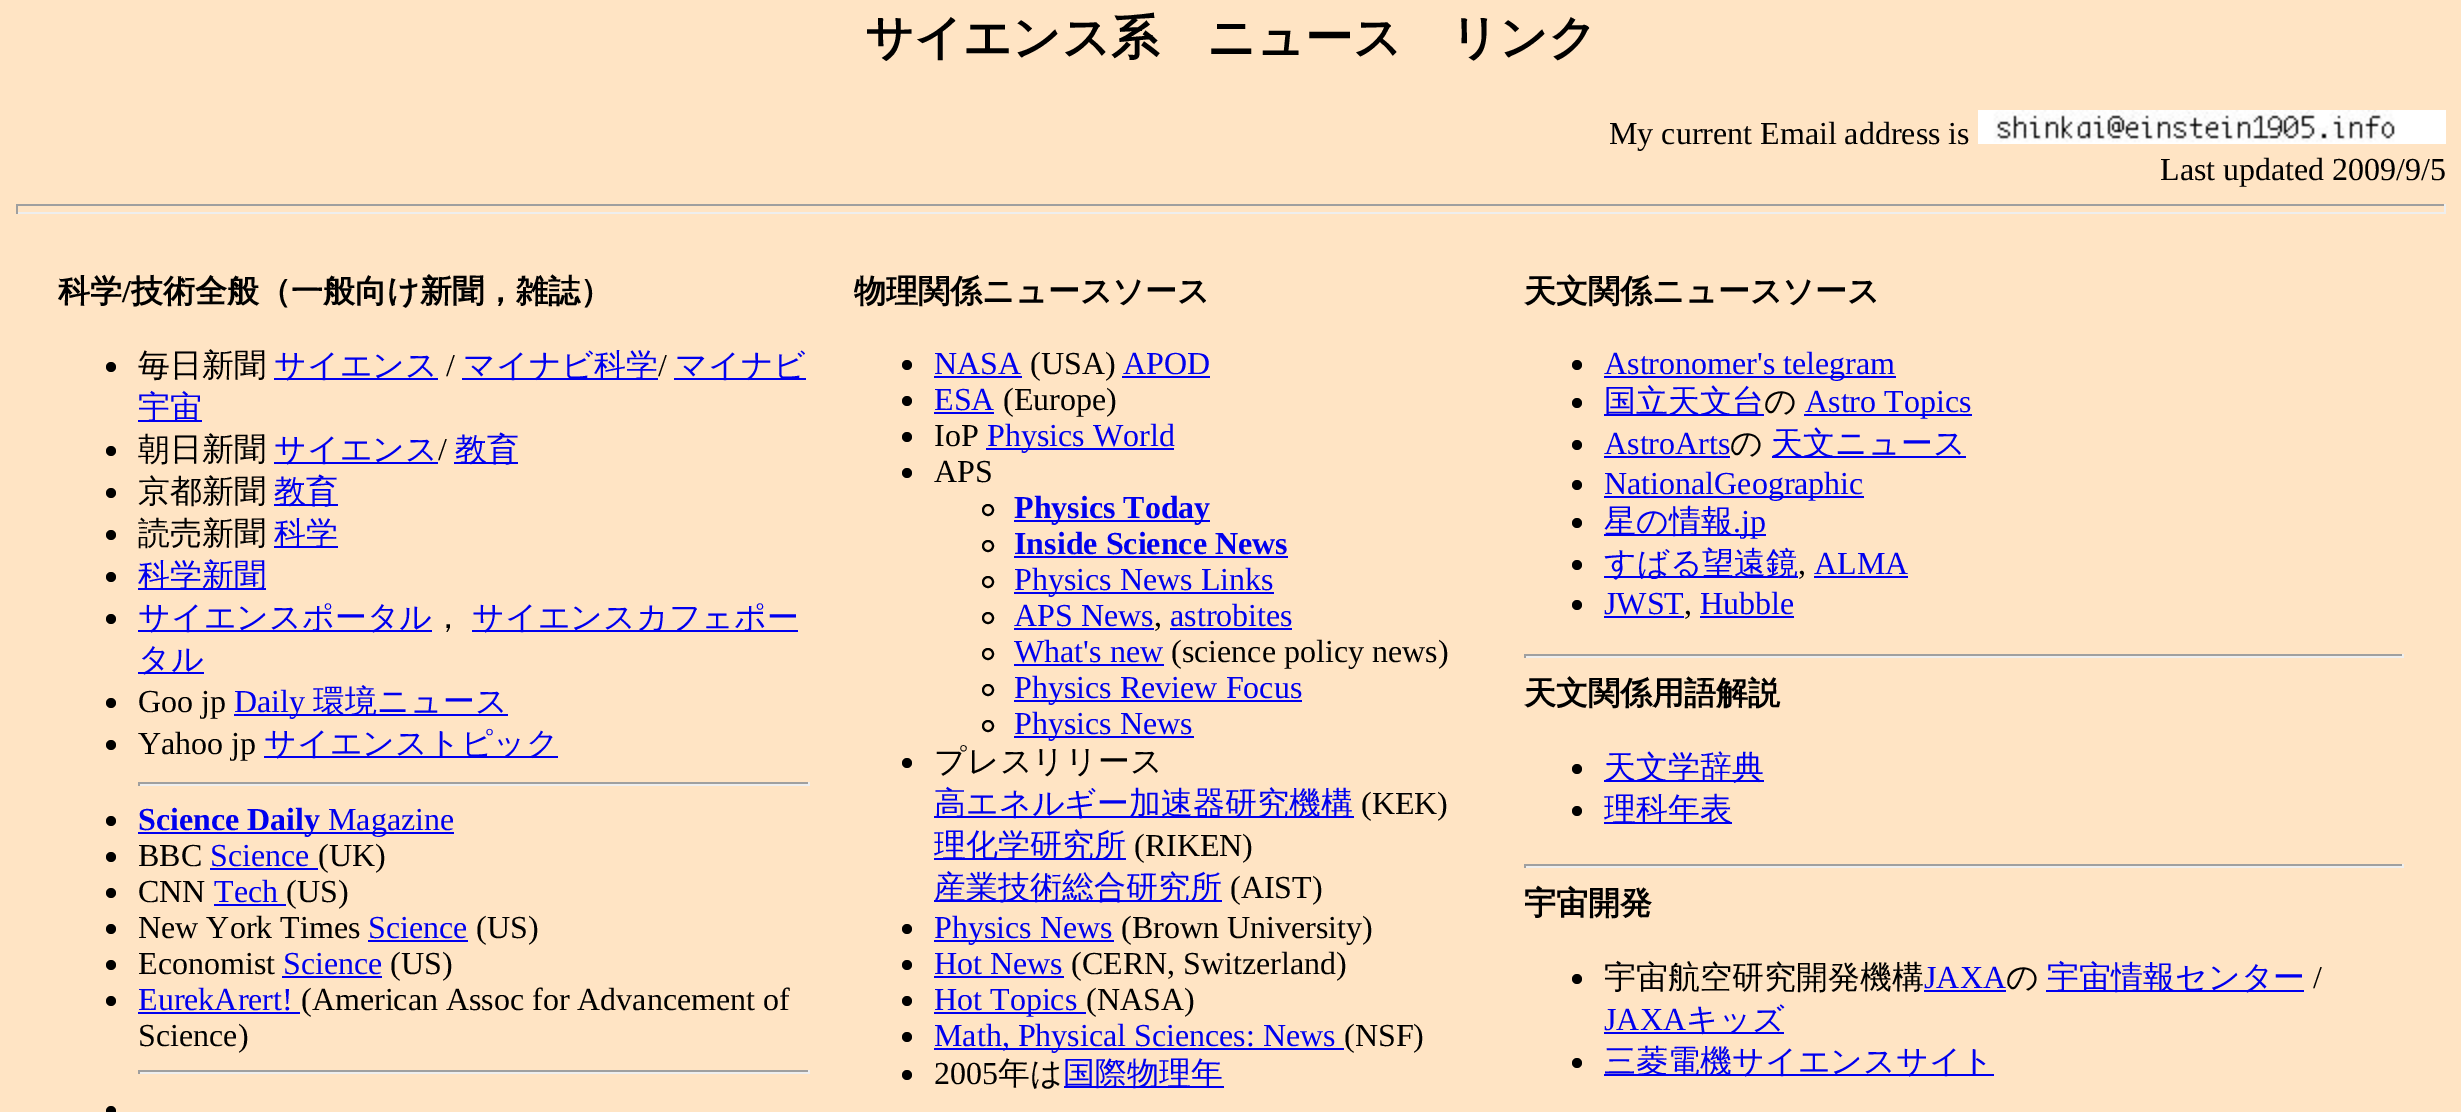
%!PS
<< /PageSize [2461 1112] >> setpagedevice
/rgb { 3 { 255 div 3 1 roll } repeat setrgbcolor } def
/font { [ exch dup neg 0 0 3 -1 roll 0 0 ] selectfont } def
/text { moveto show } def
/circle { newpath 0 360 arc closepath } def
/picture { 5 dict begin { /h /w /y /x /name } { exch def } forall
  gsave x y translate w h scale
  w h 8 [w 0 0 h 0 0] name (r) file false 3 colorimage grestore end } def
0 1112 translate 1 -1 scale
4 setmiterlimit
255 228 196 rgb
0 0 2461 1112 rectfill
(img_01.rgb) 1978 110 468 34 picture
159 159 159 rgb
16 204 2430 2 rectfill
238 238 238 rgb
2444 204 2 10 rectfill
16 212 2430 2 rectfill
159 159 159 rgb
16 204 2 10 rectfill
0 0 0 rgb
111 367 5 circle fill
0 0 238 rgb
274 378 164 2 rectfill
462 378 196 2 rectfill
674 378 132 2 rectfill
138 420 64 2 rectfill
0 0 0 rgb
111 451 5 circle fill
0 0 238 rgb
274 462 164 2 rectfill
454 462 64 2 rectfill
0 0 0 rgb
111 493 5 circle fill
0 0 238 rgb
274 504 64 2 rectfill
0 0 0 rgb
111 535 5 circle fill
0 0 238 rgb
274 546 64 2 rectfill
0 0 0 rgb
111 577 5 circle fill
0 0 238 rgb
138 588 128 2 rectfill
0 0 0 rgb
111 619 5 circle fill
0 0 238 rgb
138 630 294 2 rectfill
472 630 326 2 rectfill
138 672 66 2 rectfill
0 0 0 rgb
111 703 5 circle fill
0 0 238 rgb
234 714 274 2 rectfill
0 0 0 rgb
111 745 5 circle fill
0 0 238 rgb
264 756 294 2 rectfill
159 159 159 rgb
138 782 672 2 rectfill
238 238 238 rgb
808 782 2 4 rectfill
138 784 672 2 rectfill
159 159 159 rgb
138 782 2 4 rectfill
0 0 0 rgb
111 821 5 circle fill
0 0 238 rgb
138 832 316 2 rectfill
0 0 0 rgb
111 857 5 circle fill
0 0 238 rgb
210 868 108 2 rectfill
0 0 0 rgb
111 893 5 circle fill
0 0 238 rgb
214 904 72 2 rectfill
0 0 0 rgb
111 929 5 circle fill
0 0 238 rgb
368 940 100 2 rectfill
0 0 0 rgb
111 965 5 circle fill
0 0 238 rgb
282 976 100 2 rectfill
0 0 0 rgb
111 1001 5 circle fill
0 0 238 rgb
138 1012 162 2 rectfill
159 159 159 rgb
138 1070 672 2 rectfill
238 238 238 rgb
808 1070 2 4 rectfill
138 1072 672 2 rectfill
159 159 159 rgb
138 1070 2 4 rectfill
0 0 0 rgb
111 1111 5 circle fill
907 365 5 circle fill
0 0 238 rgb
934 376 88 2 rectfill
1122 376 88 2 rectfill
0 0 0 rgb
907 401 5 circle fill
0 0 238 rgb
934 412 60 2 rectfill
0 0 0 rgb
907 437 5 circle fill
0 0 238 rgb
986 448 188 2 rectfill
0 0 0 rgb
907 473 5 circle fill
2 setlinewidth
988 510 5 circle stroke
0 0 238 rgb
1014 520 196 2 rectfill
0 0 0 rgb
988 546 5 circle stroke
0 0 238 rgb
1014 556 274 2 rectfill
0 0 0 rgb
988 582 5 circle stroke
0 0 238 rgb
1014 592 260 2 rectfill
0 0 0 rgb
988 618 5 circle stroke
0 0 238 rgb
1014 628 140 2 rectfill
1170 628 122 2 rectfill
0 0 0 rgb
988 654 5 circle stroke
0 0 238 rgb
1014 664 150 2 rectfill
0 0 0 rgb
988 690 5 circle stroke
0 0 238 rgb
1014 700 288 2 rectfill
0 0 0 rgb
988 726 5 circle stroke
0 0 238 rgb
1014 736 180 2 rectfill
0 0 0 rgb
907 763 5 circle fill
0 0 238 rgb
934 816 420 2 rectfill
934 858 192 2 rectfill
934 900 288 2 rectfill
0 0 0 rgb
907 929 5 circle fill
0 0 238 rgb
934 940 180 2 rectfill
0 0 0 rgb
907 965 5 circle fill
0 0 238 rgb
934 976 130 2 rectfill
0 0 0 rgb
907 1001 5 circle fill
0 0 238 rgb
934 1012 152 2 rectfill
0 0 0 rgb
907 1037 5 circle fill
0 0 238 rgb
934 1048 410 2 rectfill
0 0 0 rgb
907 1075 5 circle fill
0 0 238 rgb
1064 1086 160 2 rectfill
0 0 0 rgb
1577 365 5 circle fill
0 0 238 rgb
1604 376 292 2 rectfill
0 0 0 rgb
1577 403 5 circle fill
0 0 238 rgb
1604 414 160 2 rectfill
1804 414 168 2 rectfill
0 0 0 rgb
1577 445 5 circle fill
0 0 238 rgb
1604 456 126 2 rectfill
1772 456 194 2 rectfill
0 0 0 rgb
1577 485 5 circle fill
0 0 238 rgb
1604 496 260 2 rectfill
0 0 0 rgb
1577 523 5 circle fill
0 0 238 rgb
1604 534 162 2 rectfill
0 0 0 rgb
1577 565 5 circle fill
0 0 238 rgb
1604 576 194 2 rectfill
1814 576 94 2 rectfill
0 0 0 rgb
1577 605 5 circle fill
0 0 238 rgb
1604 616 80 2 rectfill
1700 616 94 2 rectfill
159 159 159 rgb
1524 654 880 2 rectfill
238 238 238 rgb
2402 654 2 4 rectfill
1524 656 880 2 rectfill
159 159 159 rgb
1524 654 2 4 rectfill
0 0 0 rgb
1577 769 5 circle fill
0 0 238 rgb
1604 780 160 2 rectfill
0 0 0 rgb
1577 811 5 circle fill
0 0 238 rgb
1604 822 128 2 rectfill
159 159 159 rgb
1524 864 880 2 rectfill
238 238 238 rgb
2402 864 2 4 rectfill
1524 866 880 2 rectfill
159 159 159 rgb
1524 864 2 4 rectfill
0 0 0 rgb
1577 979 5 circle fill
0 0 238 rgb
1924 990 82 2 rectfill
2046 990 258 2 rectfill
1604 1032 180 2 rectfill
0 0 0 rgb
1577 1063 5 circle fill
0 0 238 rgb
1604 1074 390 2 rectfill
/WenQuanYiZenHei-Bold 48 font
0 0 0 rgb
(サイエンス系　ニュース　リンク) 865 54 text
/LiberationSerif-Regular 32 font
(My current Email address is) 1609 144 text
(Last updated 2009/9/5) 2160 180 text
/WenQuanYiZenHei-Bold 32 font
(科学) 58 302 text
/LiberationSerif-Bold 32 font
(/) 122 302 text
/WenQuanYiZenHei-Bold 32 font
(技術全般（一般向け新聞，雑誌）) 131 302 text
/WenQuanYiZenHei-Medium 32 font
(毎日新聞) 138 376 text
0 0 238 rgb
(サイエンス) 274 376 text
/LiberationSerif-Regular 32 font
0 0 0 rgb
(/) 446 376 text
/WenQuanYiZenHei-Medium 32 font
0 0 238 rgb
(マイナビ科学) 463 376 text
/LiberationSerif-Regular 32 font
0 0 0 rgb
(/) 658 376 text
/WenQuanYiZenHei-Medium 32 font
0 0 238 rgb
(マイナビ) 675 376 text
(宇宙) 138 418 text
0 0 0 rgb
(朝日新聞) 138 460 text
0 0 238 rgb
(サイエンス) 274 460 text
/LiberationSerif-Regular 32 font
0 0 0 rgb
(/) 438 460 text
/WenQuanYiZenHei-Medium 32 font
0 0 238 rgb
(教育) 455 460 text
0 0 0 rgb
(京都新聞) 138 502 text
0 0 238 rgb
(教育) 274 502 text
0 0 0 rgb
(読売新聞) 138 544 text
0 0 238 rgb
(科学) 274 544 text
(科学新聞) 138 586 text
(サイエンスポータル) 138 628 text
(サイエンスカフェポー) 472 628 text
0 0 0 rgb
(，) 432 628 text
0 0 238 rgb
(タル) 138 670 text
/LiberationSerif-Regular 32 font
0 0 0 rgb
(Goo jp) 138 712 text
0 0 238 rgb
(Daily) 234 712 text
/WenQuanYiZenHei-Medium 32 font
(環境ニュース) 313 712 text
/LiberationSerif-Regular 32 font
0 0 0 rgb
(Yahoo jp) 138 754 text
/WenQuanYiZenHei-Medium 32 font
0 0 238 rgb
(サイエンストピック) 264 754 text
/LiberationSerif-Bold 32 font
(Science Daily) 138 830 text
/LiberationSerif-Regular 32 font
(Magazine) 328 830 text
0 0 0 rgb
(BBC) 138 866 text
0 0 238 rgb
(Science) 210 866 text
0 0 0 rgb
(\(UK\)) 318 866 text
(CNN) 138 902 text
0 0 238 rgb
(Tech) 214 902 text
0 0 0 rgb
(\(US\)) 286 902 text
(New York Times) 138 938 text
0 0 238 rgb
(Science) 368 938 text
0 0 0 rgb
(\(US\)) 476 938 text
(Economist) 138 974 text
0 0 238 rgb
(Science) 283 974 text
0 0 0 rgb
(\(US\)) 390 974 text
0 0 238 rgb
(EurekArert!) 138 1010 text
0 0 0 rgb
(\(American Assoc for Advancement of) 301 1010 text
(Science\)) 138 1046 text
/WenQuanYiZenHei-Bold 32 font
(物理関係ニュースソース) 854 302 text
/LiberationSerif-Regular 32 font
0 0 238 rgb
(NASA) 934 374 text
0 0 0 rgb
(\(USA\)) 1030 374 text
0 0 238 rgb
(APOD) 1123 374 text
(ESA) 934 410 text
0 0 0 rgb
(\(Europe\)) 1003 410 text
(IoP) 934 446 text
0 0 238 rgb
(Physics World) 987 446 text
0 0 0 rgb
(APS) 934 482 text
/LiberationSerif-Bold 32 font
0 0 238 rgb
(Physics Today) 1014 518 text
(Inside Science News) 1014 554 text
/LiberationSerif-Regular 32 font
(Physics News Links) 1014 590 text
(APS News) 1014 626 text
(astrobites) 1170 626 text
0 0 0 rgb
(,) 1154 626 text
0 0 238 rgb
(What's new) 1014 662 text
0 0 0 rgb
(\(science policy news\)) 1171 662 text
0 0 238 rgb
(Physics Review Focus) 1014 698 text
(Physics News) 1014 734 text
/WenQuanYiZenHei-Medium 32 font
0 0 0 rgb
(プレスリリース) 934 772 text
0 0 238 rgb
(高エネルギー加速器研究機構) 934 814 text
/LiberationSerif-Regular 32 font
0 0 0 rgb
(\(KEK\)) 1361 814 text
/WenQuanYiZenHei-Medium 32 font
0 0 238 rgb
(理化学研究所) 934 856 text
/LiberationSerif-Regular 32 font
0 0 0 rgb
(\(RIKEN\)) 1134 856 text
/WenQuanYiZenHei-Medium 32 font
0 0 238 rgb
(産業技術総合研究所) 934 898 text
/LiberationSerif-Regular 32 font
0 0 0 rgb
(\(AIST\)) 1230 898 text
0 0 238 rgb
(Physics News) 934 938 text
0 0 0 rgb
(\(Brown University\)) 1121 938 text
0 0 238 rgb
(Hot News) 934 974 text
0 0 0 rgb
(\(CERN, Switzerland\)) 1071 974 text
0 0 238 rgb
(Hot Topics) 934 1010 text
0 0 0 rgb
(\(NASA\)) 1086 1010 text
0 0 238 rgb
(Math, Physical Sciences: News) 934 1046 text
0 0 0 rgb
(\(NSF\)) 1344 1046 text
(2005) 934 1084 text
/WenQuanYiZenHei-Medium 32 font
(年は) 998 1084 text
0 0 238 rgb
(国際物理年) 1063 1084 text
/WenQuanYiZenHei-Bold 32 font
0 0 0 rgb
(天文関係ニュースソース) 1524 302 text
/LiberationSerif-Regular 32 font
0 0 238 rgb
(Astronomer's telegram) 1604 374 text
/WenQuanYiZenHei-Medium 32 font
(国立天文台) 1604 412 text
0 0 0 rgb
(の) 1764 412 text
/LiberationSerif-Regular 32 font
0 0 238 rgb
(Astro Topics) 1805 412 text
(AstroArts) 1604 454 text
/WenQuanYiZenHei-Medium 32 font
0 0 0 rgb
(の) 1730 454 text
0 0 238 rgb
(天文ニュース) 1771 454 text
/LiberationSerif-Regular 32 font
(NationalGeographic) 1604 494 text
/WenQuanYiZenHei-Medium 32 font
(星の情報) 1604 532 text
/LiberationSerif-Regular 32 font
(.jp) 1733 532 text
/WenQuanYiZenHei-Medium 32 font
(すばる望遠鏡) 1604 574 text
/LiberationSerif-Regular 32 font
(ALMA) 1814 574 text
0 0 0 rgb
(,) 1798 574 text
0 0 238 rgb
(JWST) 1604 614 text
(Hubble) 1700 614 text
0 0 0 rgb
(,) 1684 614 text
/WenQuanYiZenHei-Bold 32 font
(天文関係用語解説) 1524 704 text
/WenQuanYiZenHei-Medium 32 font
0 0 238 rgb
(天文学辞典) 1604 778 text
(理科年表) 1604 820 text
/WenQuanYiZenHei-Bold 32 font
0 0 0 rgb
(宇宙開発) 1524 914 text
/WenQuanYiZenHei-Medium 32 font
(宇宙航空研究開発機構) 1604 988 text
/LiberationSerif-Regular 32 font
0 0 238 rgb
(JAXA) 1924 988 text
/WenQuanYiZenHei-Medium 32 font
0 0 0 rgb
(の) 2006 988 text
0 0 238 rgb
(宇宙情報センター) 2047 988 text
/LiberationSerif-Regular 32 font
0 0 0 rgb
(/) 2313 988 text
0 0 238 rgb
(JAXA) 1604 1030 text
/WenQuanYiZenHei-Medium 32 font
(キッズ) 1686 1030 text
(三菱電機サイエンスサイト) 1604 1072 text
showpage
